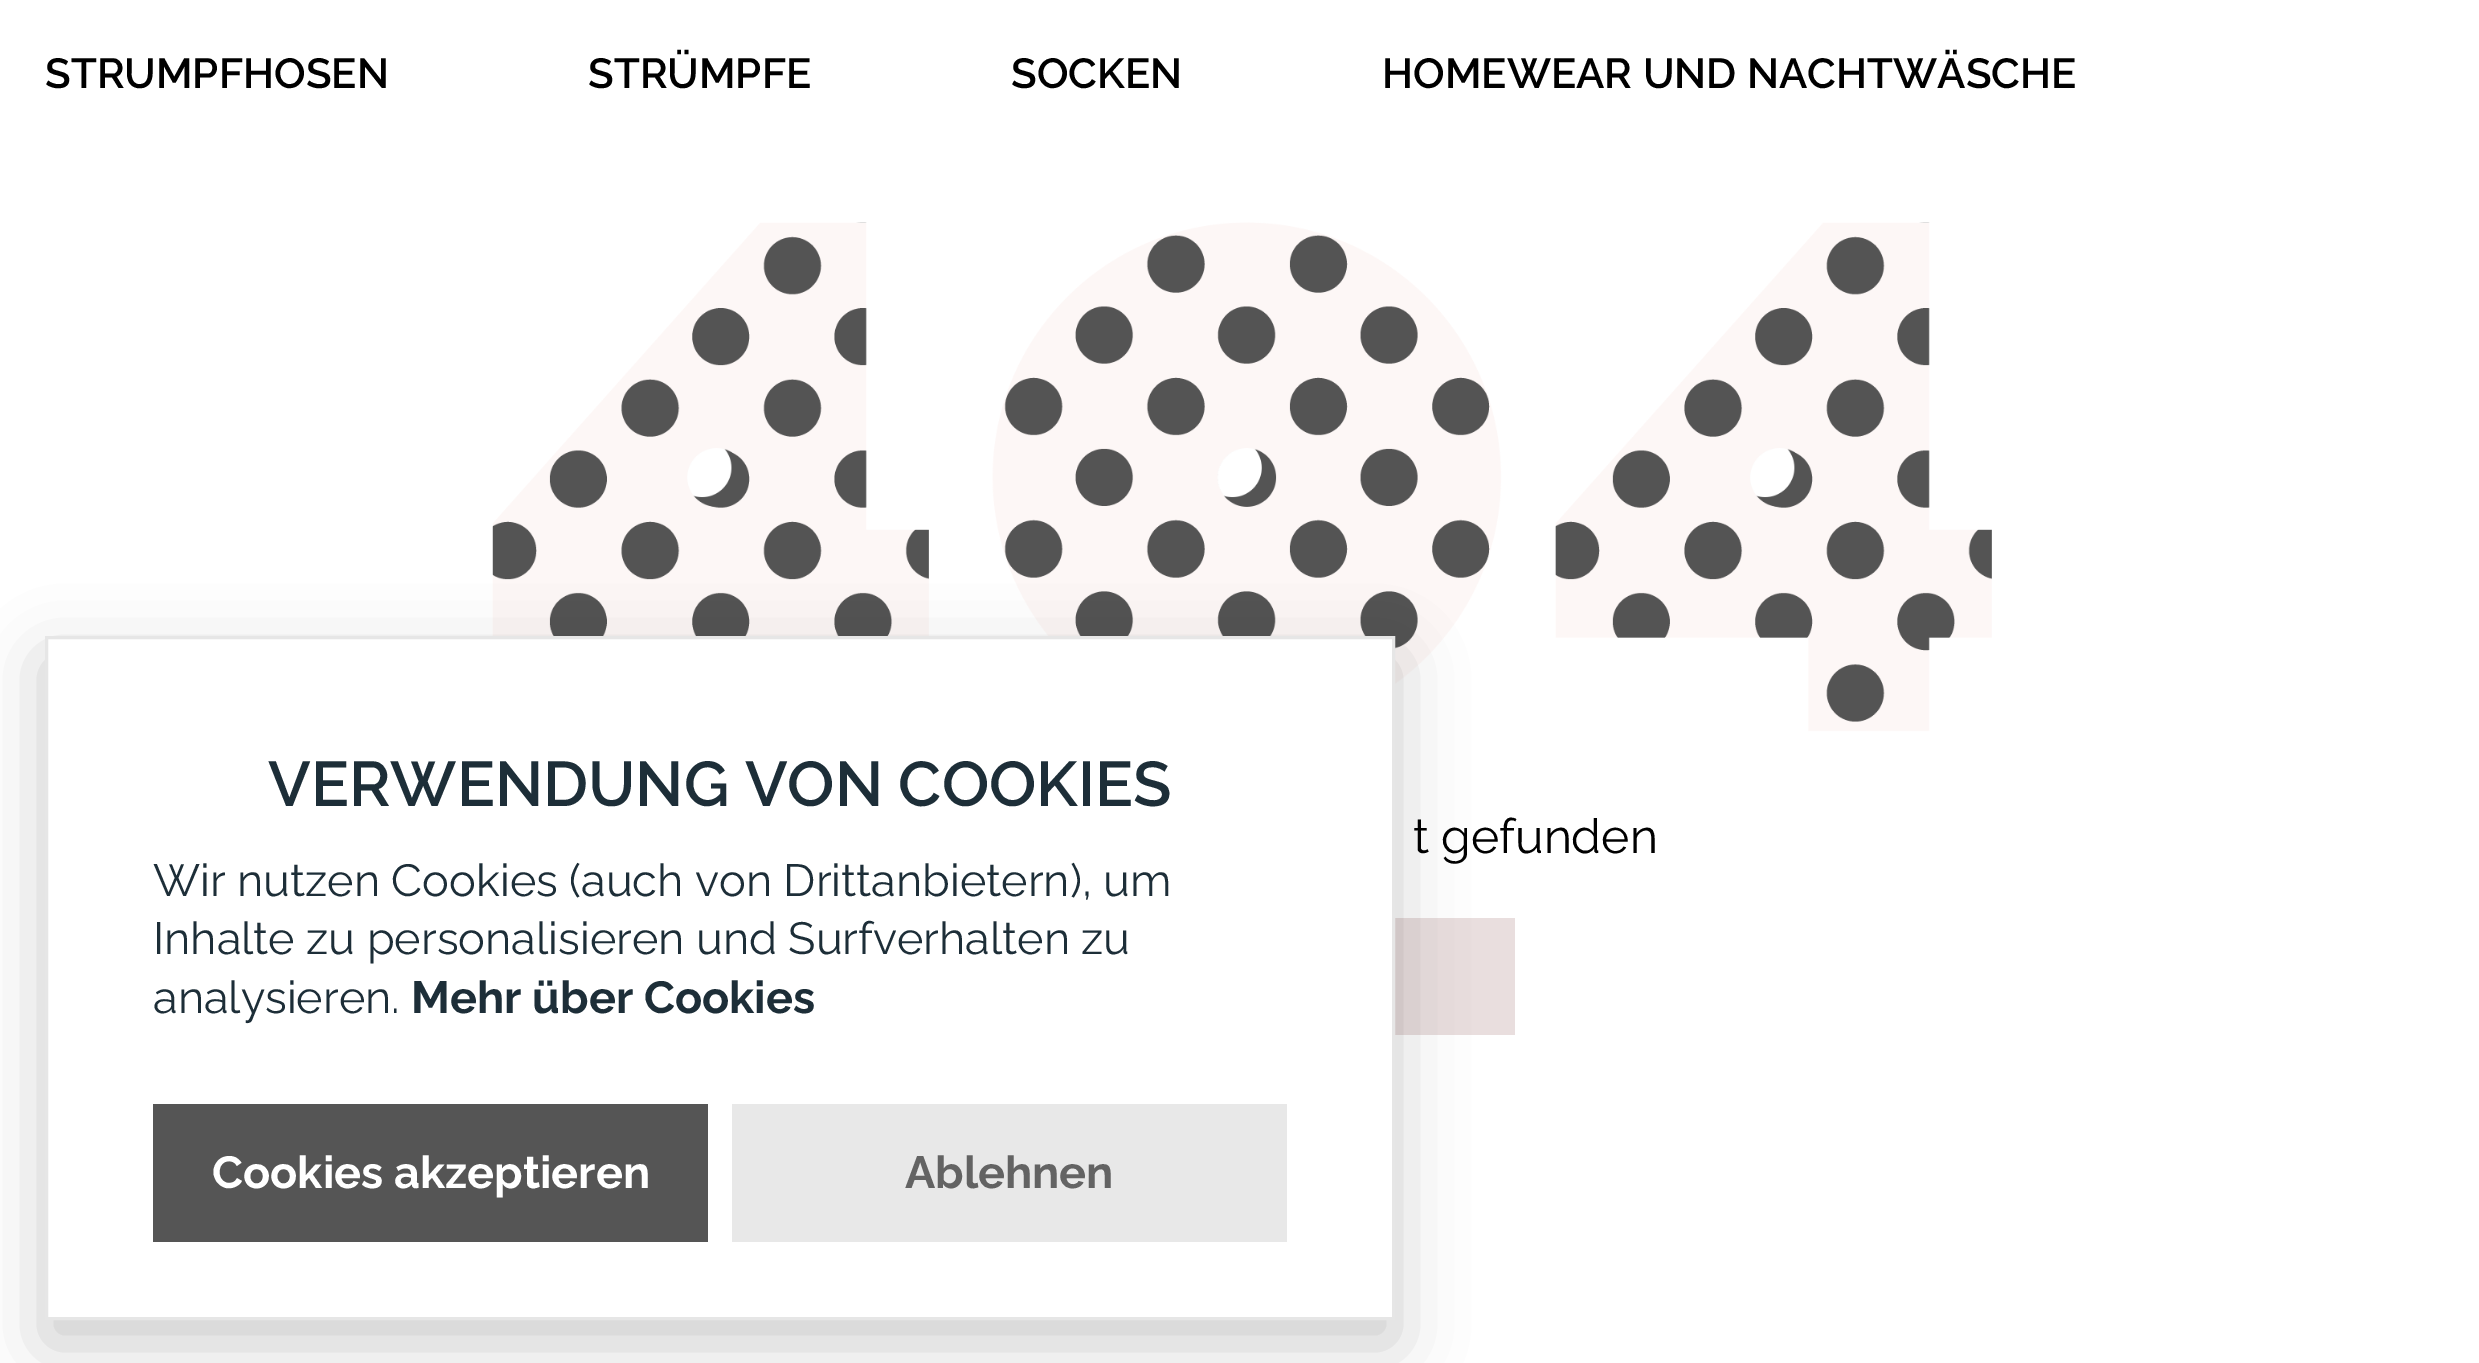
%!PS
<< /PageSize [2479 1363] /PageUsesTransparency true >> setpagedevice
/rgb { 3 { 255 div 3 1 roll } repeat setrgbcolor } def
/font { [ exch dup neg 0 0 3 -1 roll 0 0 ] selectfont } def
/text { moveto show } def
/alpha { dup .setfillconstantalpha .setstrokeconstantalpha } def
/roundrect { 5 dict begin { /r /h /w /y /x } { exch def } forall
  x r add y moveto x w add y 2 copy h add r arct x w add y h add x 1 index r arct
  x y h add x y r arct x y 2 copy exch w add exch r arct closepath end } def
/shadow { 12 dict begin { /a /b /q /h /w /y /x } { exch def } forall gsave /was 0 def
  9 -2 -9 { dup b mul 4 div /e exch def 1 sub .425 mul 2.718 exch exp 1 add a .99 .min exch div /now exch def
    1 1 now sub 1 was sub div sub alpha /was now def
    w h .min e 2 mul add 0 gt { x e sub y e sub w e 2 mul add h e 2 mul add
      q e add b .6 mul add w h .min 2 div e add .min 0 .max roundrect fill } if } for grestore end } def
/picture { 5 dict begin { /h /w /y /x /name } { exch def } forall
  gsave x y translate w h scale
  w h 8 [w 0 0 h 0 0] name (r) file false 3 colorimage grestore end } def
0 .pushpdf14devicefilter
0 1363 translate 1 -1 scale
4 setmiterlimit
255 255 255 rgb
0 0 2479 1363 rectfill
(img_01.rgb) 492 222 1500 510 picture
233 222 222 rgb
1395 918 120 117 rectfill
2 2 3 rgb
45 660 1350 684 0 34 0.2 shadow
255 255 255 rgb
46.5 637.5 moveto 1347 0 rlineto 0 681 rlineto -1347 0 rlineto closepath gsave fill grestore
230 230 230 rgb
3 setlinewidth
stroke
85 85 85 rgb
153 1104 555 138 rectfill
232 232 232 rgb
732 1104 555 138 rectfill
/Raleway-Thin 42 font
0 0 0 rgb
(STRUMPFHOSEN) 45 88 text
(STRÜMPFE) 588 88 text
(SOCKEN) 1011 88 text
(HOMEWEAR UND NACHTWÄSCHE) 1382 88 text
/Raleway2-Thin 48 font
(t gefunden) 1413 853 text
/Raleway-Thin 63 font
29 46 56 rgb
(VERWENDUNG VON COOKIES) 268 806 text
/Raleway2-Thin 45 font
(Wir nutzen Cookies \(auch von Drittanbietern\), um) 153 896 text
(Inhalte zu personalisieren und Surfverhalten zu) 153 954 text
(analysieren.) 153 1013 text
/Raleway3-Thin 45 font
(Mehr über Cookies) 411 1013 text
255 255 255 rgb
(Cookies akzeptieren) 212 1188 text
99 99 99 rgb
(Ablehnen) 905 1188 text
.poppdf14devicefilter showpage
